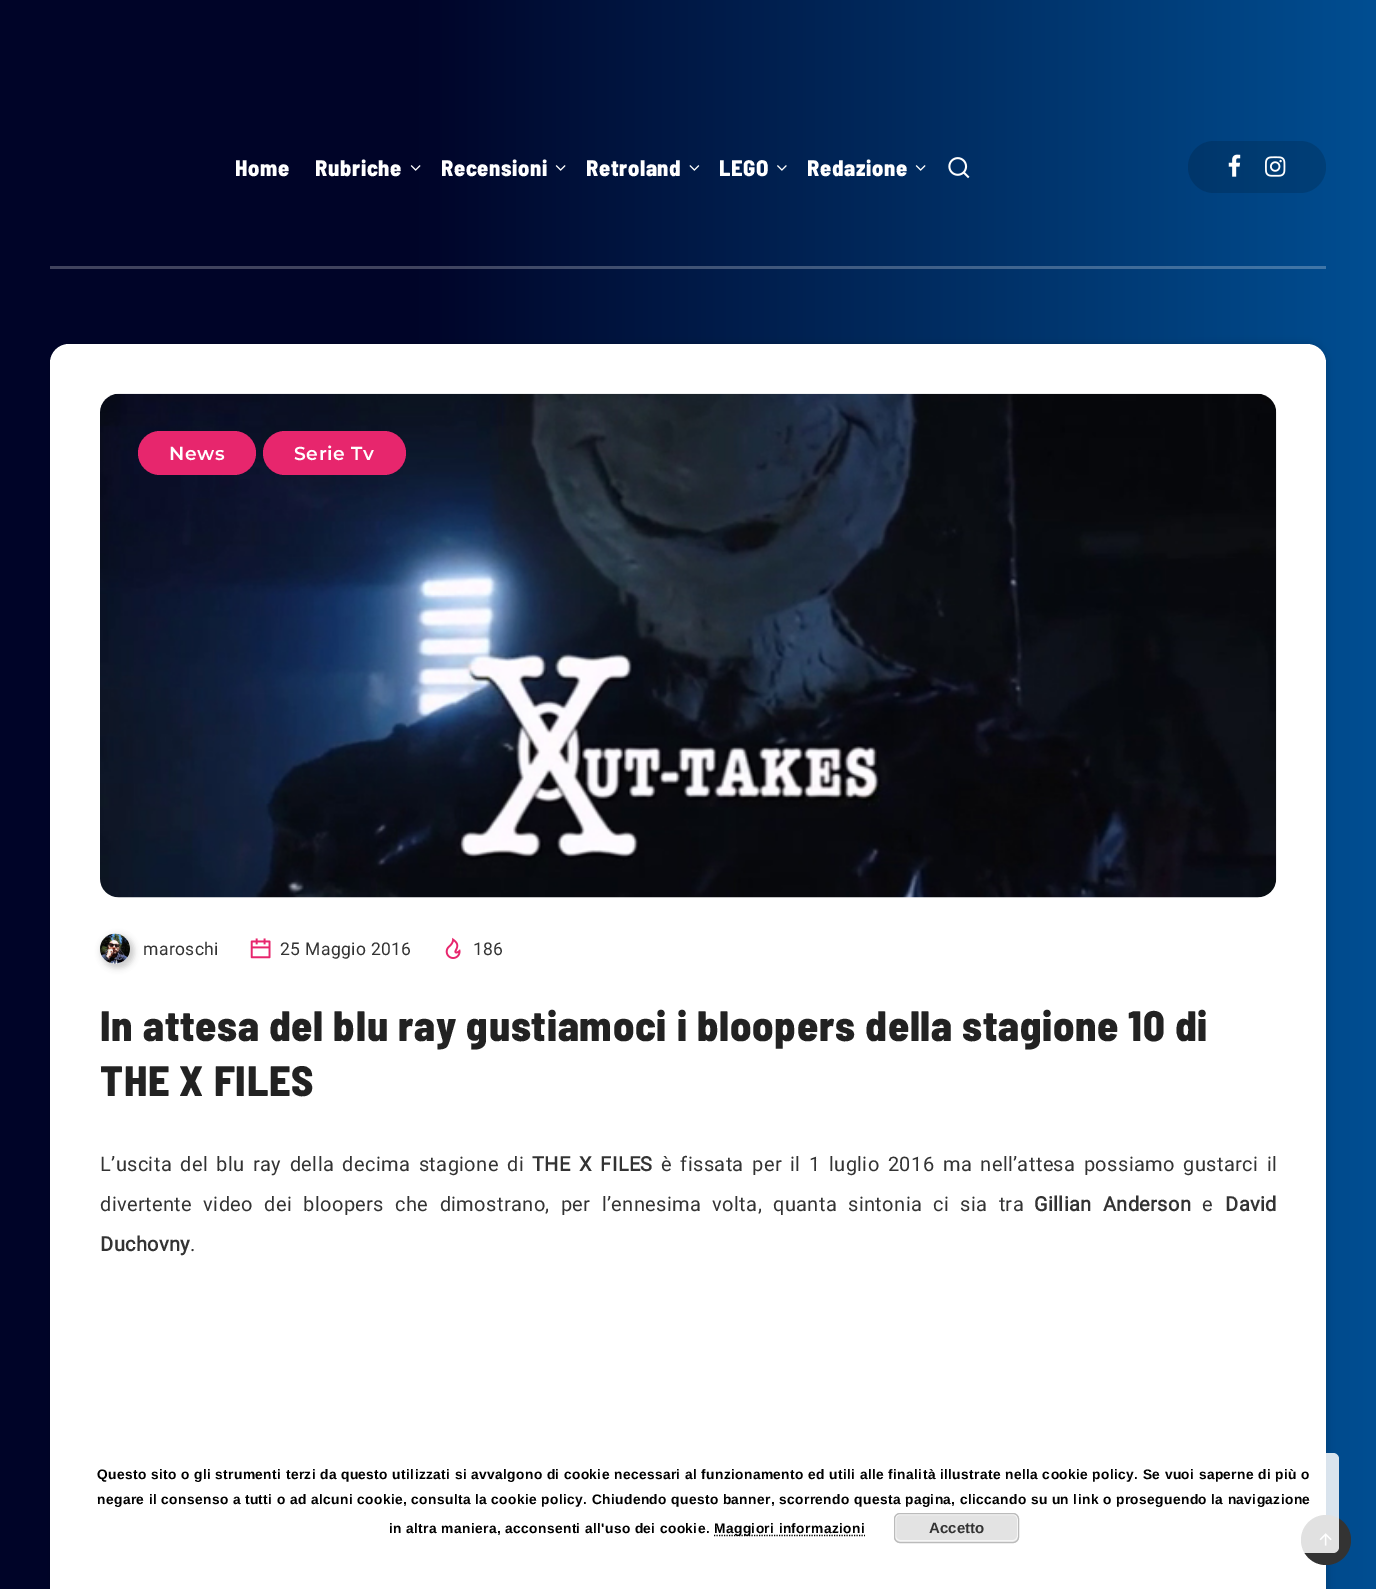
%!PS
<< /PageSize [1376 1589] /PageUsesTransparency true >> setpagedevice
/rgb { 3 { 255 div 3 1 roll } repeat setrgbcolor } def
/font { [ exch dup neg 0 0 3 -1 roll 0 0 ] selectfont } def
/text { moveto show } def
/alpha { dup .setfillconstantalpha .setstrokeconstantalpha } def
/circle { newpath 0 360 arc closepath } def
/roundrect { 5 dict begin { /r /h /w /y /x } { exch def } forall
  x r add y moveto x w add y 2 copy h add r arct x w add y h add x 1 index r arct
  x y h add x y r arct x y 2 copy exch w add exch r arct closepath end } def
/shadow { 12 dict begin { /a /b /q /h /w /y /x } { exch def } forall gsave /was 0 def
  9 -2 -9 { dup b mul 4 div /e exch def 1 sub .425 mul 2.718 exch exp 1 add a .99 .min exch div /now exch def
    1 1 now sub 1 was sub div sub alpha /was now def
    w h .min e 2 mul add 0 gt { x e sub y e sub w e 2 mul add h e 2 mul add
      q e add b .6 mul add w h .min 2 div e add .min 0 .max roundrect fill } if } for grestore end } def
/picture { 5 dict begin { /h /w /y /x /name } { exch def } forall
  gsave x y translate w h scale
  w h 8 [w 0 0 h 0 0] name (r) file false 3 colorimage grestore end } def
0 .pushpdf14devicefilter
0 1589 translate 1 -1 scale
4 setmiterlimit
255 255 255 rgb
0 0 1376 1589 rectfill
gsave 0 0 moveto 1376 0 rlineto 0 1589 rlineto -1376 0 rlineto closepath clip newpath
<< /ShadingType 2 /ColorSpace /DeviceRGB /Coords [0 795 1376 795] /Extend [true true] /Function << /FunctionType 3 /Domain [0 1] /Functions [<< /FunctionType 2 /Domain [0 1] /C0 [0 0.016 0.157] /C1 [0 0.016 0.157] /N 1 >> << /FunctionType 2 /Domain [0 1] /C0 [0 0.016 0.157] /C1 [0 0.306 0.573] /N 1 >>] /Bounds [0.3] /Encode [0 1 0 1] >> >> shfill grestore
gsave 50 266 moveto 1276 0 rlineto 0 3 rlineto -1276 0 rlineto closepath clip newpath
<< /ShadingType 2 /ColorSpace /DeviceRGB /Coords [0 795 1376 795] /Extend [true true] /Function << /FunctionType 3 /Domain [0 1] /Functions [<< /FunctionType 2 /Domain [0 1] /C0 [0.251 0.263 0.369] /C1 [0.251 0.263 0.369] /N 1 >> << /FunctionType 2 /Domain [0 1] /C0 [0.251 0.263 0.369] /C1 [0.251 0.478 0.678] /N 1 >>] /Bounds [0.3] /Encode [0 1 0 1] >> >> shfill grestore
(img_01.rgb) 410 165 11 6 picture
(img_02.rgb) 555 165 11 6 picture
(img_03.rgb) 689 165 11 6 picture
(img_04.rgb) 777 165 10 6 picture
(img_05.rgb) 915 165 11 6 picture
(img_06.rgb) 948 157 22 22 picture
0.15 alpha
0 0 0 rgb
1188 141 138 52 26 roundrect fill
1 alpha
(img_07.rgb) 1228 154 13 23 picture
(img_08.rgb) 1265 156 21 21 picture
50 344 1276 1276 19 4 0.15 shadow
255 255 255 rgb
50 344 1276 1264 19 roundrect fill
(img_09.rgb) 100 393 1177 505 picture
231 38 109 rgb
138 431 118 44 22 roundrect fill
263 431 143 44 22 roundrect fill
0 0 0 rgb
101 935 33 33 16.5 3 0.2 shadow
(img_10.rgb) 100 933 30 31 picture
(img_11.rgb) 250 938 21 21 picture
(img_12.rgb) 445 937 16 22 picture
51 51 51 rgb
1326 1540 25 circle fill
(img_13.rgb) 1319 1533 13 13 picture
0.85 alpha
255 255 255 rgb
69 1453 1270 100 6 roundrect fill
1 alpha
0 0 0 rgb
1.2 setlinewidth
[1.25 1.25] 0 setdash
714 1535.5 moveto 151 0 rlineto stroke
227 227 227 rgb
894 1513 125 30 6 roundrect fill
246 246 246 rgb
1 setlinewidth
[] 0 setdash
895.5 1514.5 122 26 4.5 roundrect stroke
187 187 187 rgb
894.5 1513.5 124 29 5.5 roundrect stroke
/BarlowSemiCondensed-ExtraBold 22.5 font
255 255 255 rgb
235 176 moveto 0.6 0 (Home) ashow
315 176 moveto 0.6 0 (Rubriche) ashow
441 176 moveto 0.6 0 (Recensioni) ashow
586 176 moveto 0.6 0 (Retroland) ashow
719 176 moveto 0.6 0 (LEGO) ashow
807 176 moveto 0.6 0 (Redazione) ashow
/Montserrat-SemiBold 18.75 font
169 460 moveto 0.6 0 (News) ashow
294 460 moveto 0.6 0 (Serie Tv) ashow
/Roboto-Regular 17.5 font
51 51 51 rgb
143 955 moveto 0.38 0 (maroschi) ashow
280 955 moveto 0.38 0 (25 Maggio 2016) ashow
473 955 moveto 0.38 0 (186) ashow
/BarlowSemiCondensed-ExtraBold 42.5 font
34 34 34 rgb
100 1041 moveto 0.75 0 (In attesa del blu ray gustiamoci i bloopers della stagione 10 di) ashow
100 1096 moveto 0.75 0 (THE X FILES) ashow
/Roboto-Regular 20 font
51 51 51 rgb
100 1171 moveto 3 0 32 0.38 0 (L’uscita del blu ray della decima stagione di) awidthshow
/Roboto-Bold 20 font
532 1171 moveto 3 0 32 0.38 0 (THE X FILES) awidthshow
/Roboto-Regular 20 font
661 1171 moveto 3 0 32 0.38 0 (è fissata per il 1 luglio 2016 ma nell’attesa possiamo gustarci il) awidthshow
100 1211 moveto 5.75 0 32 0.38 0 (divertente video dei bloopers che dimostrano, per l’ennesima volta, quanta sintonia ci sia tra) awidthshow
/Roboto-Bold 20 font
1034 1211 moveto 5.75 0 32 0.38 0 (Gillian Anderson) awidthshow
/Roboto-Regular 20 font
1202 1211 moveto 0.38 0 (e) ashow
/Roboto-Bold 20 font
1225 1211 moveto 0.38 0 (David) ashow
100 1251 moveto 0.38 0 (Duchovny) ashow
/Roboto-Regular 20 font
190 1251 moveto 0.38 0 (.) ashow
/LiberationSans-Bold 13.75 font
0 0 0 rgb
97 1479 moveto 0.38 0 (Questo sito o gli strumenti terzi da questo utilizzati si avvalgono di cookie necessari al funzionamento ed utili alle finalità illustrate nella cookie policy. Se vuoi saperne di più o) ashow
97 1504 moveto 0.38 0 (negare il consenso a tutti o ad alcuni cookie, consulta la cookie policy. Chiudendo questo banner, scorrendo questa pagina, cliccando su un link o proseguendo la navigazione) ashow
389 1533 moveto 0.38 0 (in altra maniera, acconsenti all'uso dei cookie.) ashow
714 1533 moveto 0.38 0 (Maggiori informazioni) ashow
/LiberationSans-Bold 15 font
51 51 51 rgb
(Accetto) 929 1533 text
.poppdf14devicefilter showpage
